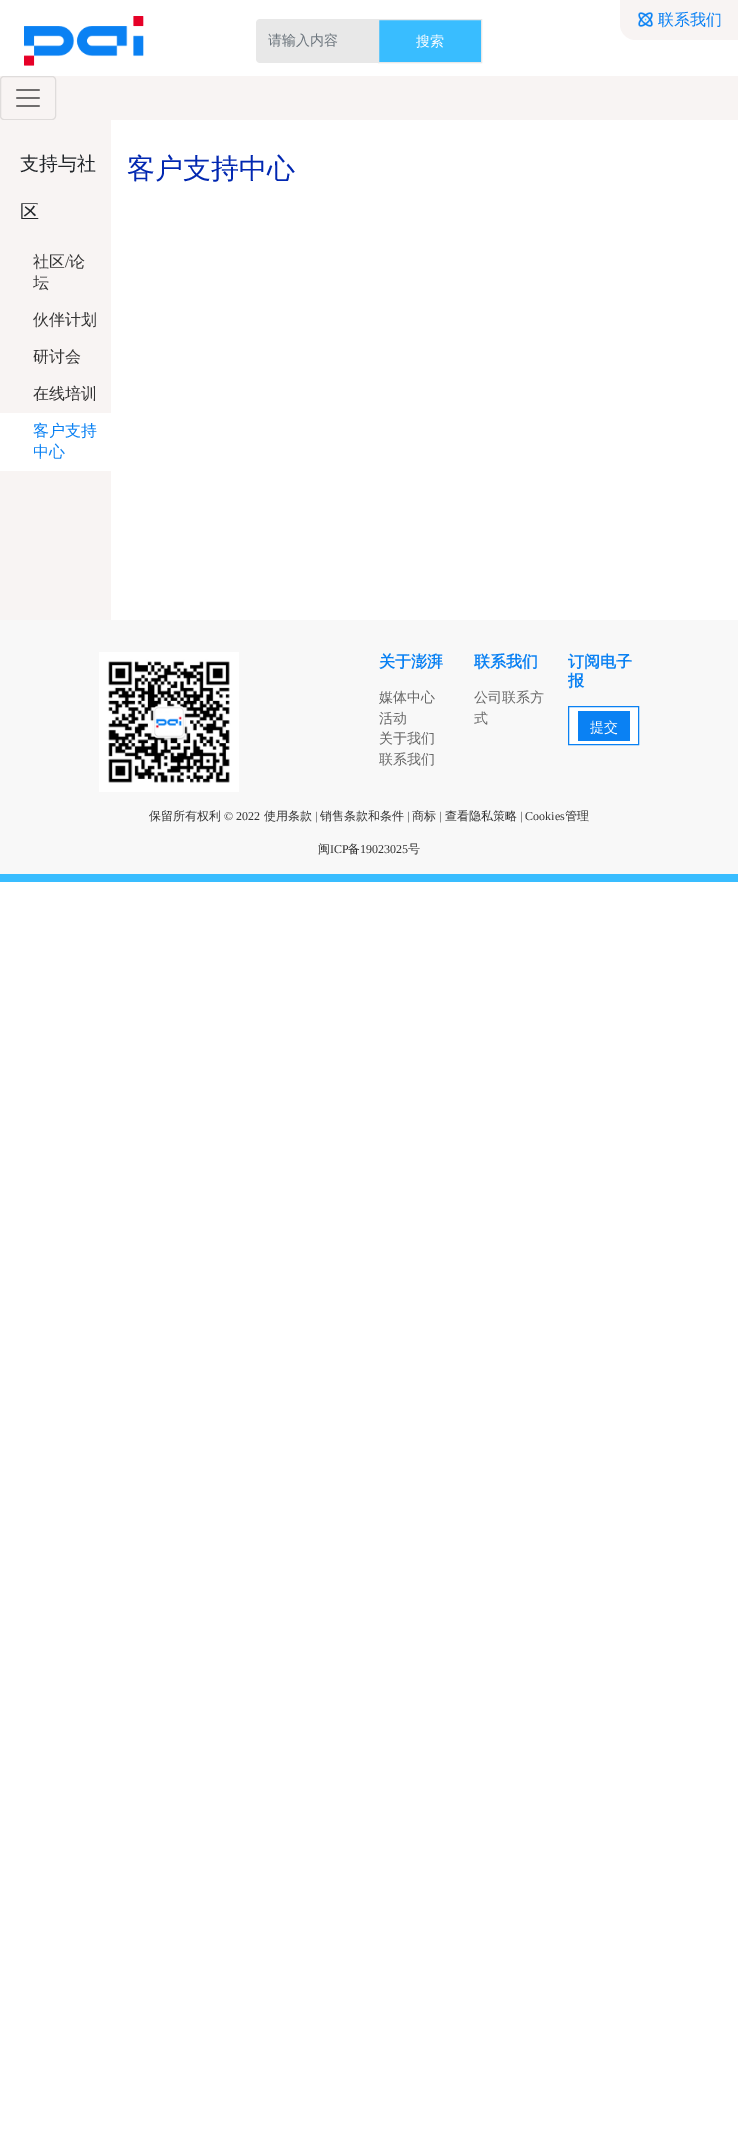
%!PS
<< /PageSize [738 2147] >> setpagedevice
/rgb { 3 { 255 div 3 1 roll } repeat setrgbcolor } def
/font { [ exch dup neg 0 0 3 -1 roll 0 0 ] selectfont } def
/text { moveto show } def
/roundrect { 5 dict begin { /r /h /w /y /x } { exch def } forall
  x r add y moveto x w add y 2 copy h add r arct x w add y h add x 1 index r arct
  x y h add x y r arct x y 2 copy exch w add exch r arct closepath end } def
/picture { 5 dict begin { /h /w /y /x /name } { exch def } forall
  gsave x y translate w h scale
  w h 8 [w 0 0 h 0 0] name (r) file false 3 colorimage grestore end } def
0 2147 translate 1 -1 scale
4 setmiterlimit
255 255 255 rgb
0 0 738 2147 rectfill
(img_01.rgb) 24 16 120 50 picture
232 232 232 rgb
260 19 moveto 119 0 rlineto 0 44 rlineto -119 0 rlineto -2 0 -4 -2 -4 -4 rcurveto 0 -36 rlineto 0 -2 2 -4 4 -4 rcurveto closepath fill
57 189 255 rgb
378.5 19.5 moveto 103 0 rlineto 0 43 rlineto -103 0 rlineto closepath gsave fill grestore
232 232 232 rgb
stroke
248 244 243 rgb
620 0 moveto 118 0 rlineto 0 40 rlineto -102 0 rlineto -9 0 -16 -7 -16 -16 rcurveto closepath fill
(img_02.rgb) 638 12 15 15 picture
0 76 738 44 rectfill
223 220 219 rgb
0.5 76.5 55 43 3.5 roundrect stroke
(img_03.rgb) 16 89 24 18 picture
248 244 243 rgb
0 120 111 500 rectfill
255 255 255 rgb
0 413 111 58 rectfill
248 248 248 rgb
0 620 738 254 rectfill
57 189 255 rgb
0 874 738 8 rectfill
(img_04.rgb) 99 652 140 140 picture
255 255 255 rgb
568.5 706.5 moveto 70 0 rlineto 0 38 rlineto -70 0 rlineto closepath gsave fill grestore
10 129 243 rgb
stroke
578 711 52 30 rectfill
/WenQuanYiZenHei-Medium 14 font
108 117 125 rgb
(请输入内容) 268 45 text
255 255 255 rgb
(搜索) 416 46 text
/WenQuanYiZenHei-Medium 16 font
10 129 243 rgb
(联系我们) 658 25 text
/WenQuanYiZenHei-Medium 19 font
33 37 41 rgb
(支持与社) 20 170 text
(区) 20 218 text
/WenQuanYiZenHei-Medium 16 font
51 51 51 rgb
(社区) 33 267 text
/LiberationSerif-Regular 16 font
(/) 65 267 text
/WenQuanYiZenHei-Medium 16 font
(论) 69 267 text
(坛) 33 288 text
(伙伴计划) 33 325 text
(研讨会) 33 362 text
(在线培训) 33 399 text
10 129 243 rgb
(客户支持) 33 436 text
(中心) 33 457 text
/WenQuanYiZenHei-Medium 28 font
1 39 177 rgb
(客户支持中心) 127 178 text
/WenQuanYiZenHei-Bold 16 font
10 129 243 rgb
(关于澎湃) 379 667 text
/WenQuanYiZenHei-Medium 14 font
102 102 102 rgb
(媒体中心) 379 702 text
(活动) 379 723 text
(关于我们) 379 743 text
(联系我们) 379 764 text
/WenQuanYiZenHei-Bold 16 font
10 129 243 rgb
(联系我们) 474 667 text
/WenQuanYiZenHei-Medium 14 font
102 102 102 rgb
(公司联系方) 474 702 text
(式) 474 723 text
/WenQuanYiZenHei-Bold 16 font
10 129 243 rgb
(订阅电子) 568 667 text
(报) 568 686 text
/WenQuanYiZenHei-Medium 14 font
255 255 255 rgb
(提交) 590 732 text
/WenQuanYiZenHei-Medium 12 font
51 51 51 rgb
(保留所有权利) 149 820 text
/LiberationSerif-Regular 12 font
(© 2022) 224 820 text
/WenQuanYiZenHei-Medium 12 font
(使用条款) 264 820 text
/LiberationSerif-Regular 12 font
(|) 315 820 text
/WenQuanYiZenHei-Medium 12 font
(销售条款和条件) 320 820 text
/LiberationSerif-Regular 12 font
(|) 407 820 text
/WenQuanYiZenHei-Medium 12 font
(商标) 412 820 text
/LiberationSerif-Regular 12 font
(|) 439 820 text
/WenQuanYiZenHei-Medium 12 font
(查看隐私策略) 445 820 text
/LiberationSerif-Regular 12 font
(| Cookies) 520 820 text
/WenQuanYiZenHei-Medium 12 font
(管理) 565 820 text
(闽) 318 853 text
/LiberationSerif-Regular 12 font
(ICP) 330 853 text
/WenQuanYiZenHei-Medium 12 font
(备) 348 853 text
/LiberationSerif-Regular 12 font
(19023025) 360 853 text
/WenQuanYiZenHei-Medium 12 font
(号) 408 853 text
showpage
